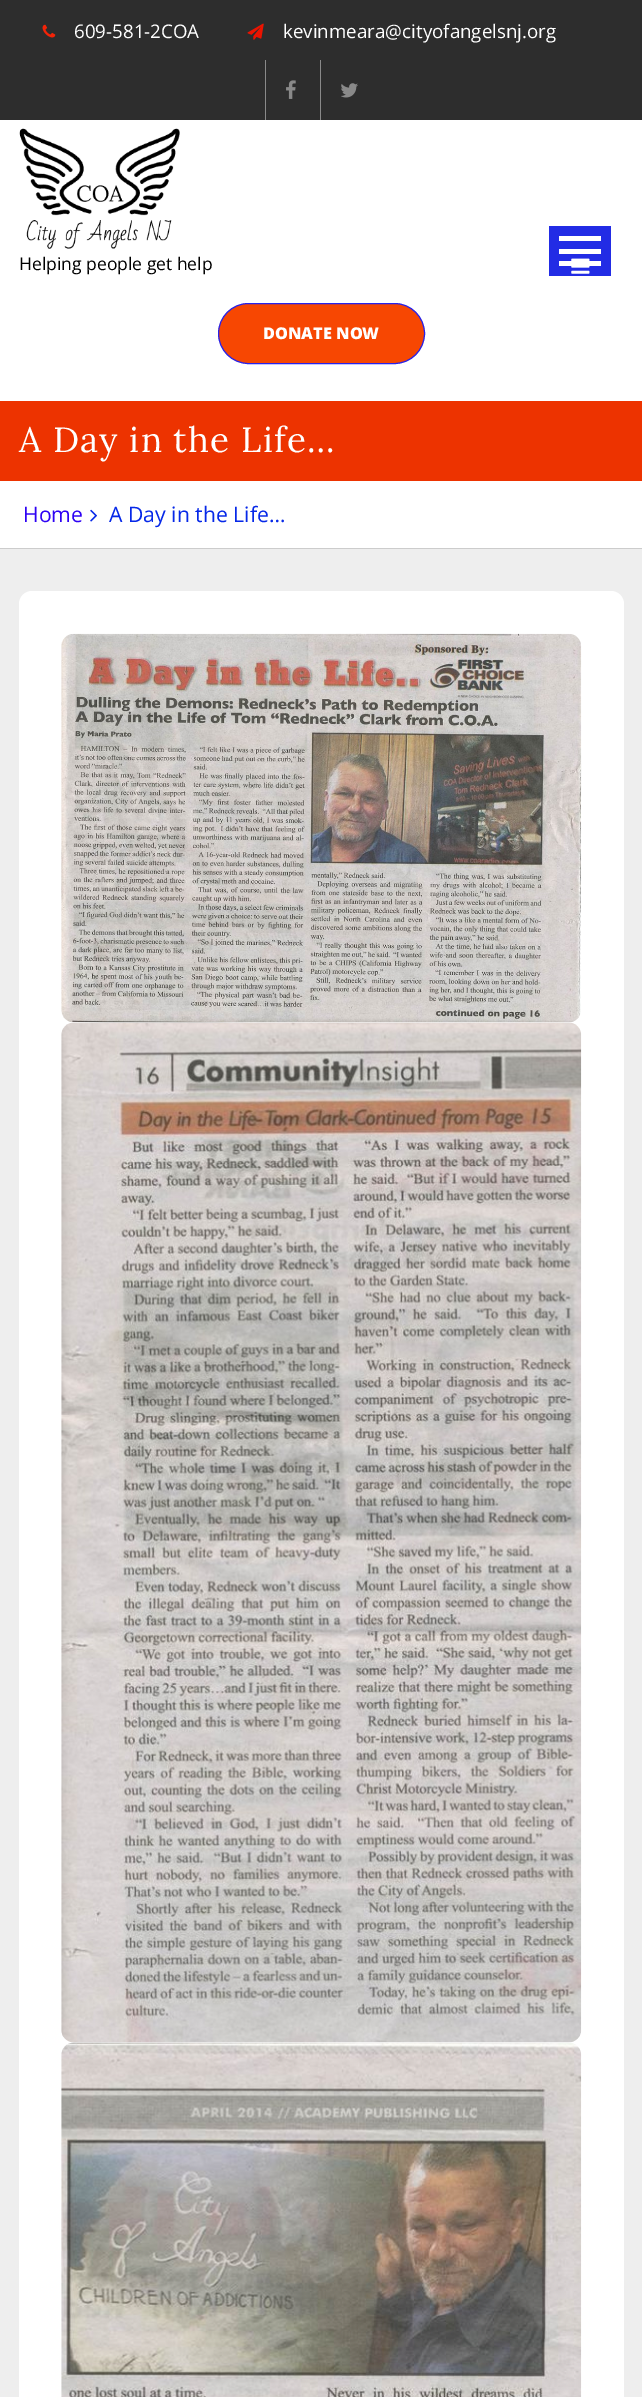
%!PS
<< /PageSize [642 2397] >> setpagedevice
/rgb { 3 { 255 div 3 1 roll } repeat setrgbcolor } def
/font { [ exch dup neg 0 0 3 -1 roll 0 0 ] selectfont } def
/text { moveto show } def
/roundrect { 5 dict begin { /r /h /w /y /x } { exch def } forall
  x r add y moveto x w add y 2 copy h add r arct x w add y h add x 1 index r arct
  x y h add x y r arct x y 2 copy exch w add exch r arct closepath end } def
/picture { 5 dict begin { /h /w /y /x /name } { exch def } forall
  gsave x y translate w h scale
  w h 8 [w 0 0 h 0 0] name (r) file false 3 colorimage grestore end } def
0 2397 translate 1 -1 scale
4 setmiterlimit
255 255 255 rgb
0 0 642 2397 rectfill
45 45 45 rgb
0 0 642 120 rectfill
(img_01.rgb) 42 24 14 14 picture
(img_02.rgb) 247 23 17 17 picture
137 137 137 rgb
265 60 1 60 rectfill
(img_03.rgb) 286 80 10 19 picture
320 60 1 60 rectfill
(img_04.rgb) 341 83 17 15 picture
(img_05.rgb) 19 128 161 121 picture
34 44 229 rgb
549 226 62 50 rectfill
255 255 255 rgb
559 236 42 5 rectfill
559 261 42 5 rectfill
559 249 42 5 rectfill
(img_06.rgb) 571 258 19 16 picture
247 71 2 rgb
218.5 303.5 206 60 30 roundrect gsave fill grestore
38 35 237 rgb
stroke
237 51 0 rgb
0 401 642 80 rectfill
204 204 204 rgb
0 548 642 1 rectfill
(img_07.rgb) 90 509 7 13 picture
238 238 238 rgb
0 549 642 1848 rectfill
255 255 255 rgb
19 591 605 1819 13 roundrect fill
(img_08.rgb) 61 633 521 390 picture
(img_09.rgb) 61 1022 521 1021 picture
(img_10.rgb) 61 2042 521 355 picture
/OpenSans-Regular 18.75 font
(609-581-2COA) 74 38 text
(kevinmeara@cityofangelsnj.org) 283 38 text
/OpenSans-Regular 17.5 font
0 0 0 rgb
(Helping people get help) 19 270 text
/OpenSans-ExtraBold 16.25 font
255 255 255 rgb
(DONATE NOW) 263 339 text
/Lora-Regular 35 font
19 452 moveto 1.25 0 (A Day in the Life…) ashow
/OpenSans-Regular 21.25 font
46 2 244 rgb
(Home) 23 522 text
6 40 232 rgb
(A Day in the Life…) 109 522 text
showpage
